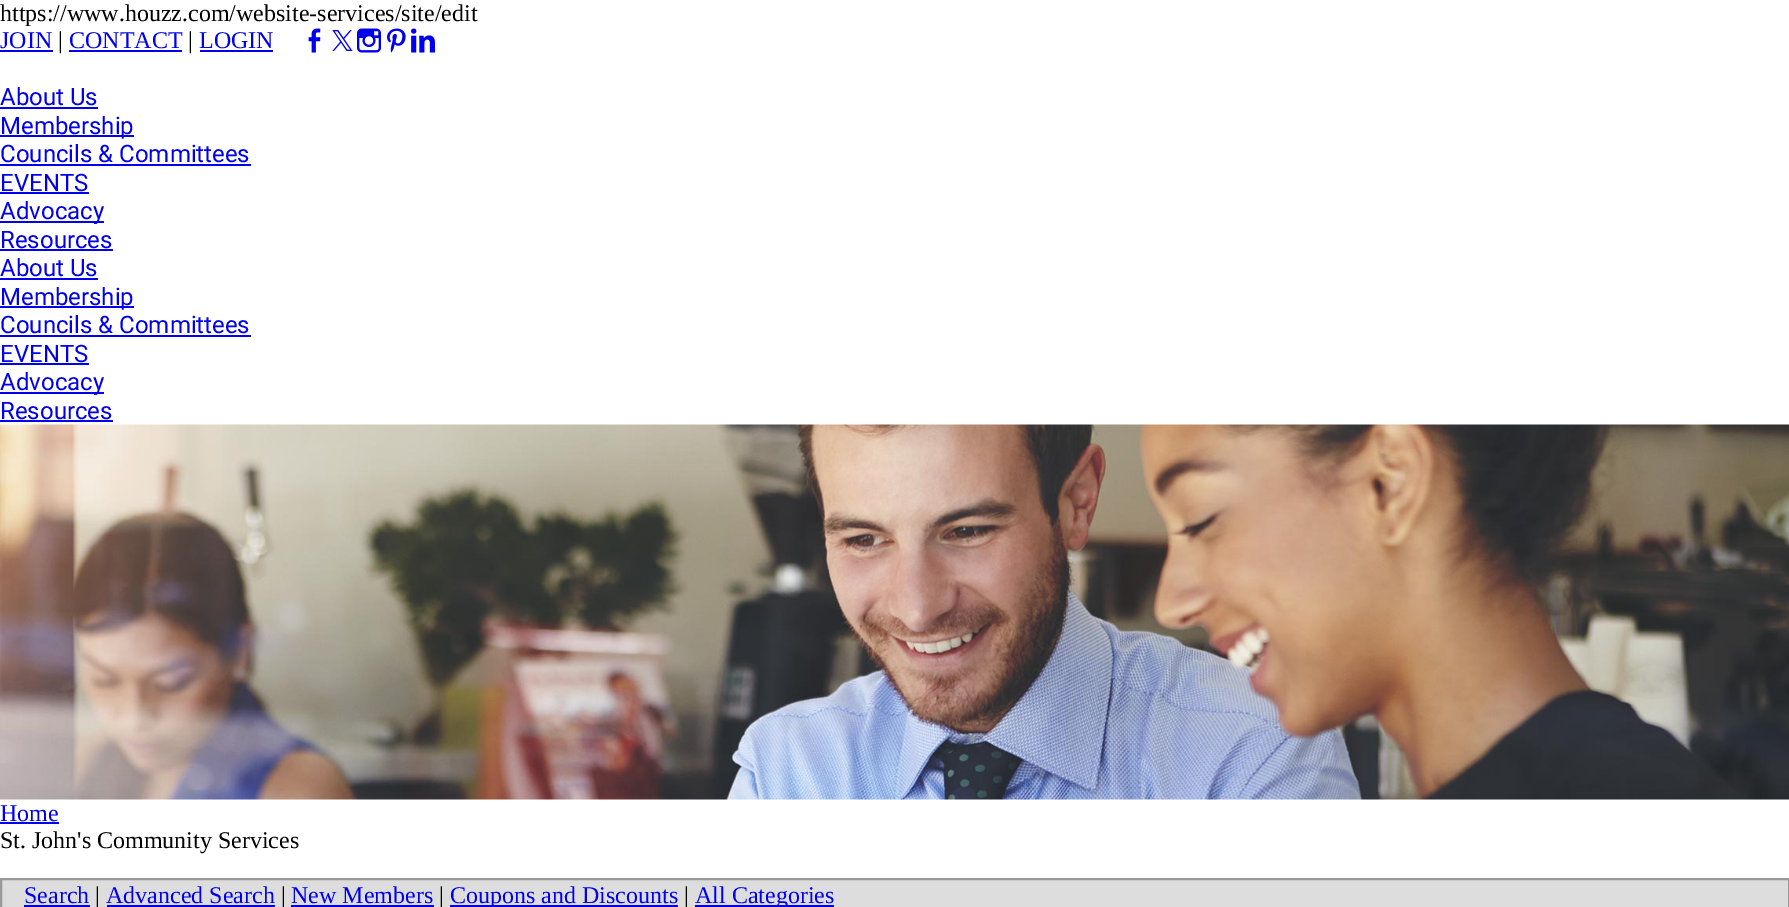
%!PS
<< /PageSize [1789 907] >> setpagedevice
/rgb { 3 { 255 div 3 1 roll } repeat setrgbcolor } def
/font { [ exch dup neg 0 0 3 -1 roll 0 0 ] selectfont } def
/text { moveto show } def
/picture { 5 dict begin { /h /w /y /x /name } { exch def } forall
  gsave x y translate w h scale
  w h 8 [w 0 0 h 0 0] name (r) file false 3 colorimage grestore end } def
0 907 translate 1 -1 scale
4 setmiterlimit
255 255 255 rgb
0 0 1789 907 rectfill
0 0 238 rgb
0 50 53 2 rectfill
69 50 113 2 rectfill
200 50 73 2 rectfill
(img_01.rgb) 308 28 13 25 picture
(img_02.rgb) 332 30 21 21 picture
(img_03.rgb) 357 28 24 25 picture
(img_04.rgb) 387 28 19 25 picture
(img_05.rgb) 411 28 24 25 picture
0 107 98 2 rectfill
0 135 134 2 rectfill
0 164 251 2 rectfill
0 192 89 2 rectfill
0 221 104 2 rectfill
0 249 113 2 rectfill
0 278 98 2 rectfill
0 306 134 2 rectfill
0 335 251 2 rectfill
0 363 89 2 rectfill
0 392 104 2 rectfill
0 420 113 2 rectfill
(img_06.rgb) 0 424 1789 376 picture
0 822 59 2 rectfill
221 221 221 rgb
1 879 moveto 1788 0 rlineto 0 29 rlineto -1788 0 rlineto closepath gsave fill grestore
153 153 153 rgb
2 setlinewidth
stroke
0 0 238 rgb
24 905 66 2 rectfill
107 905 168 2 rectfill
291 905 143 2 rectfill
450 905 228 2 rectfill
695 905 139 2 rectfill
/LiberationSerif-Regular 24 font
0 0 0 rgb
(https://www.houzz.com/website-services/site/edit) 0 21 text
0 0 238 rgb
(JOIN) 0 48 text
0 0 0 rgb
(|) 58 48 text
0 0 238 rgb
(CONTACT) 69 48 text
0 0 0 rgb
(|) 188 48 text
0 0 238 rgb
(LOGIN) 199 48 text
/Roboto-Regular 24 font
(About Us) 0 105 text
(Membership) 0 134 text
(Councils & Committees) 0 162 text
(EVENTS) 0 191 text
(Advocacy) 0 219 text
(Resources) 0 248 text
(About Us) 0 276 text
(Membership) 0 305 text
(Councils & Committees) 0 333 text
(EVENTS) 0 362 text
(Advocacy) 0 390 text
(Resources) 0 419 text
/LiberationSerif-Regular 24 font
(Home) 0 821 text
0 0 0 rgb
(St. John's Community Services) 0 848 text
0 0 238 rgb
(Search) 24 903 text
0 0 0 rgb
(|) 95 903 text
0 0 238 rgb
(Advanced Search) 106 903 text
0 0 0 rgb
(|) 281 903 text
0 0 238 rgb
(New Members) 291 903 text
0 0 0 rgb
(|) 439 903 text
0 0 238 rgb
(Coupons and Discounts) 450 903 text
0 0 0 rgb
(|) 684 903 text
0 0 238 rgb
(All Categories) 695 903 text
showpage
